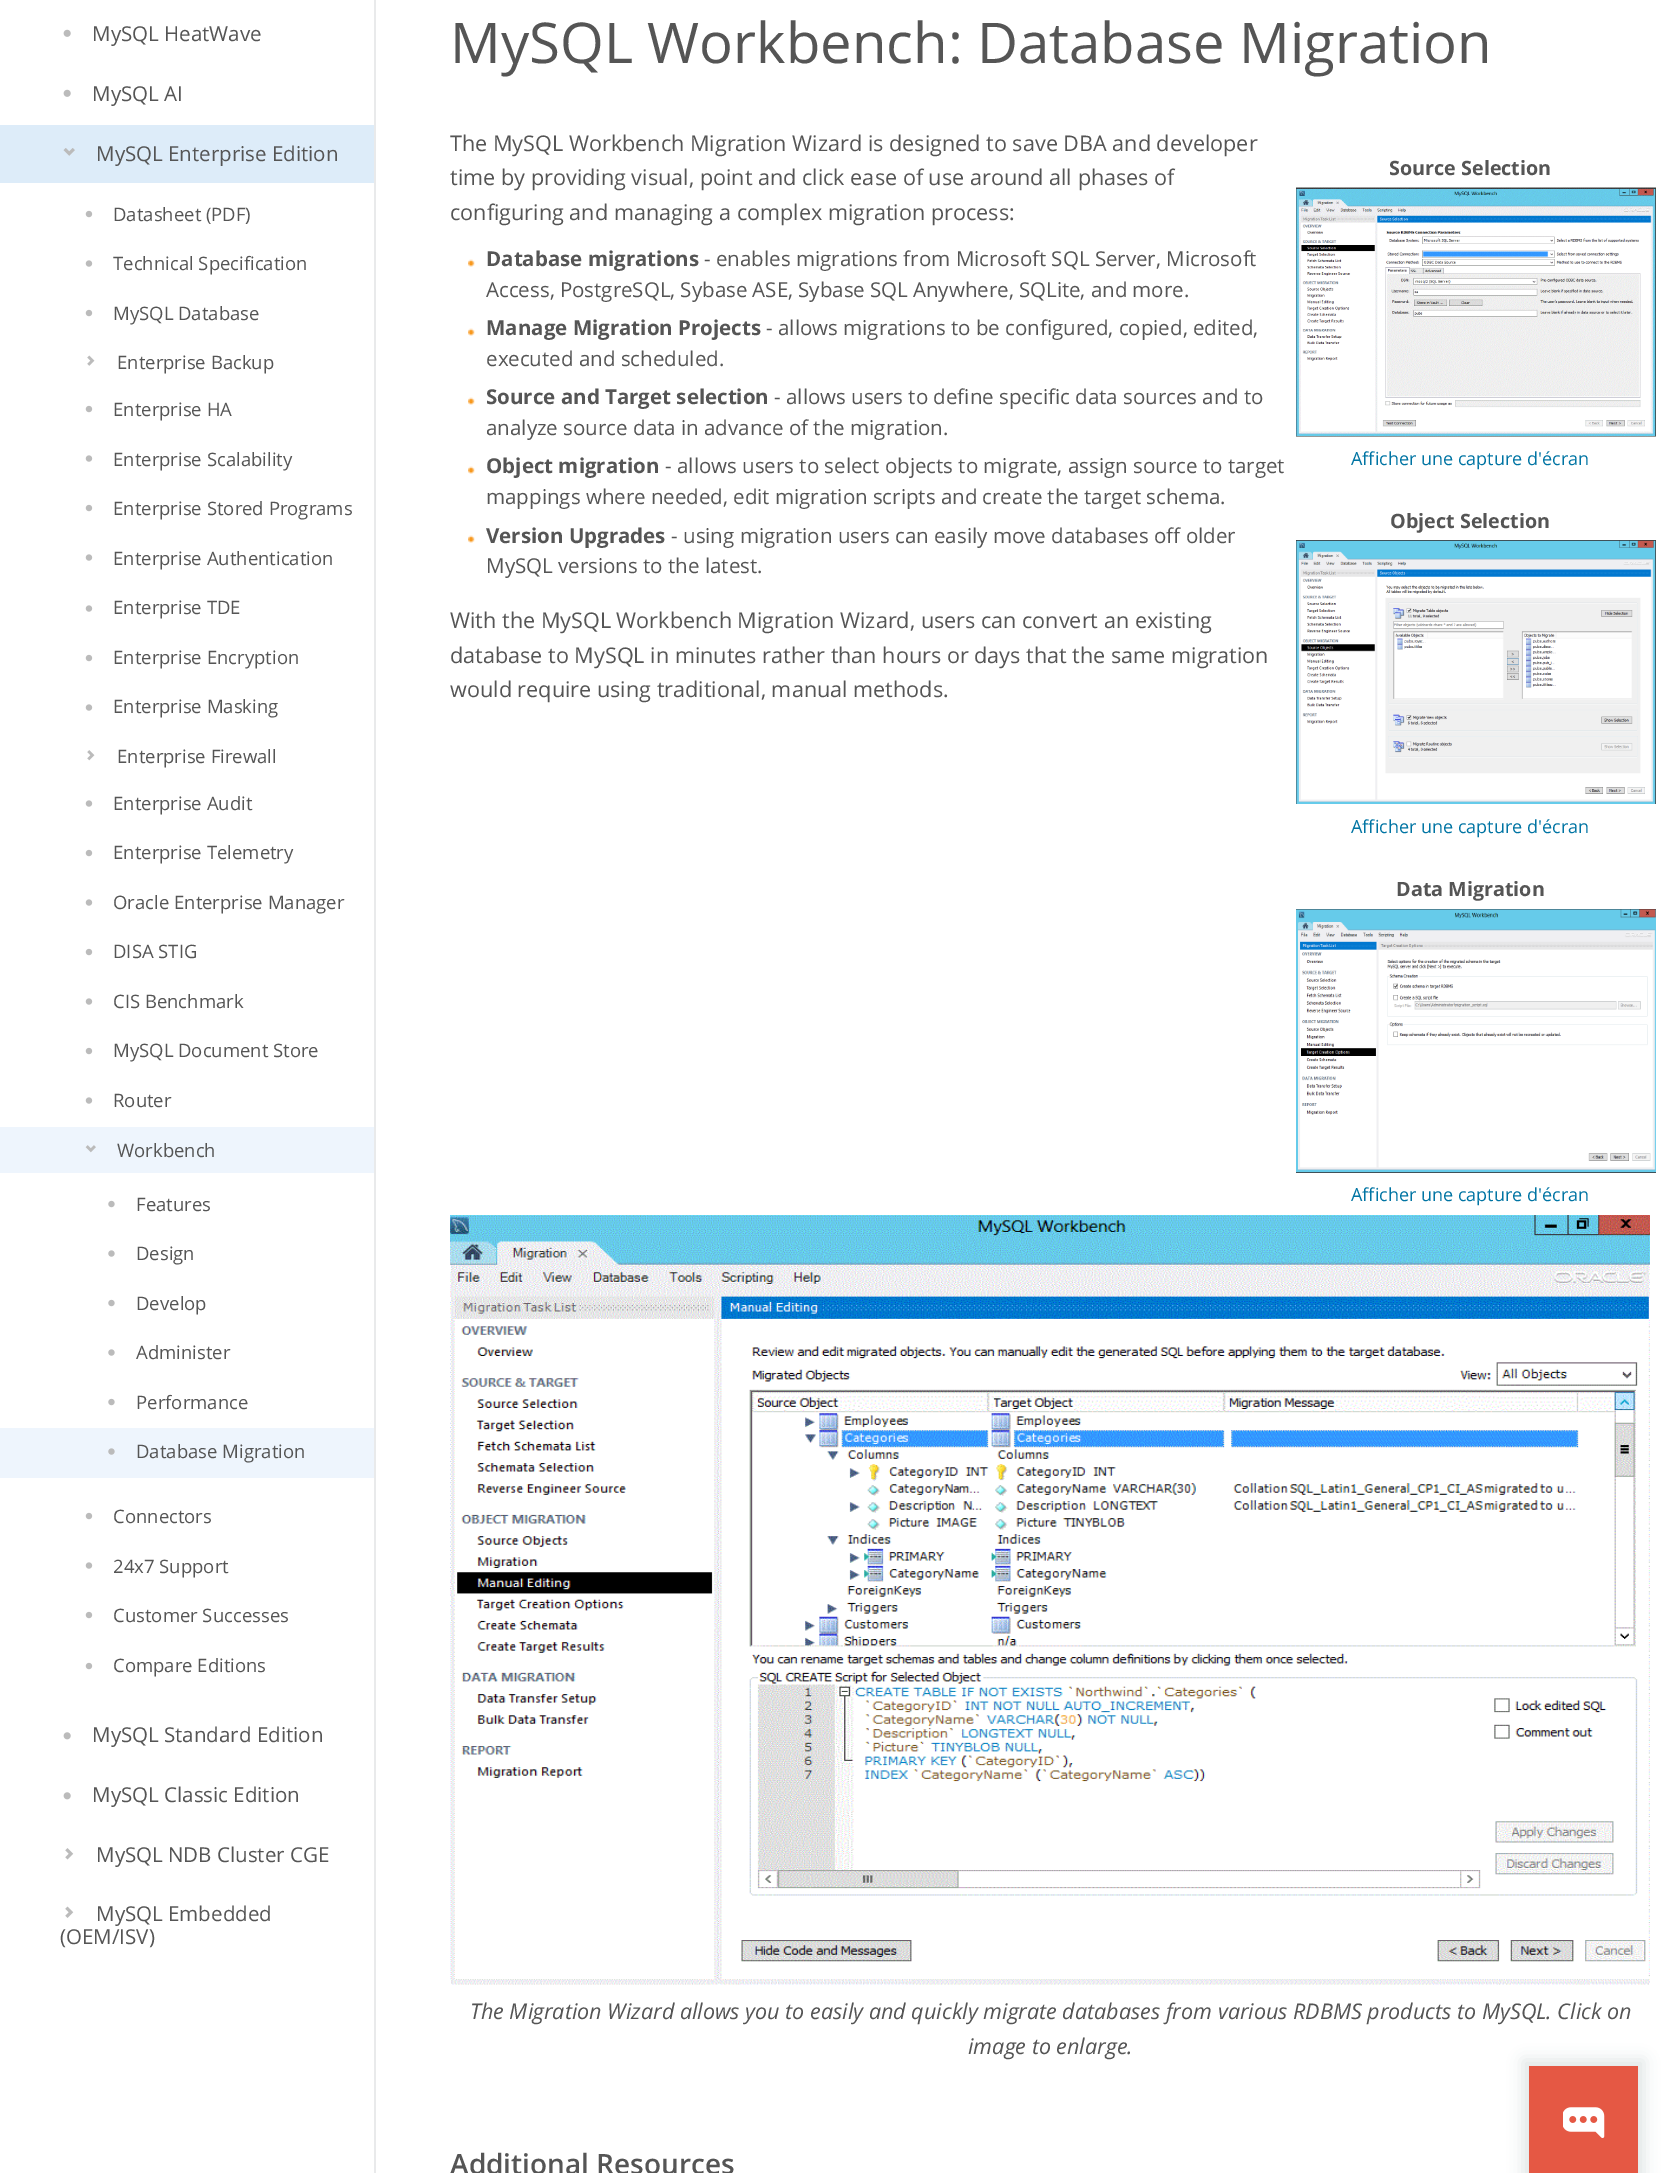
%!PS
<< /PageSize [1662 2173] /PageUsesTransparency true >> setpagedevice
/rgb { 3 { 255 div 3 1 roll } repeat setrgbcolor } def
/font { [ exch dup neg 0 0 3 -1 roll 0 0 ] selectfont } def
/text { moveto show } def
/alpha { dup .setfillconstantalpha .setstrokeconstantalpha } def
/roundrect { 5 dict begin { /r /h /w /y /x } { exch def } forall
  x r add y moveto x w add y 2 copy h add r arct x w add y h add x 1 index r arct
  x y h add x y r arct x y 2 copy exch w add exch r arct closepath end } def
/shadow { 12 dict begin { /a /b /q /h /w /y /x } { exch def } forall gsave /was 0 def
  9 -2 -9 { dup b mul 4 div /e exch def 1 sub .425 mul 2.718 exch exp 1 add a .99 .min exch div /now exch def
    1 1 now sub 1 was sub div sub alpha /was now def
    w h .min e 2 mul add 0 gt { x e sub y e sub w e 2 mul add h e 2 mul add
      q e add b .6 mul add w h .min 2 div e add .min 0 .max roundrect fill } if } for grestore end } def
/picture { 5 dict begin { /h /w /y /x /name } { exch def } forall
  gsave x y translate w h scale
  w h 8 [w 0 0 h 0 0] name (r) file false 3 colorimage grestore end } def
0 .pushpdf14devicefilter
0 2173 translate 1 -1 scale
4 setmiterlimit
255 255 255 rgb
0 0 1662 2173 rectfill
233 234 235 rgb
374 0 2 2173 rectfill
(img_01.rgb) 63 29 8 8 picture
(img_01.rgb) 63 89 8 8 picture
221 236 249 rgb
0 125 374 58 rectfill
(img_02.rgb) 63 148 12 8 picture
(img_03.rgb) 85 210 8 8 picture
(img_04.rgb) 85 260 8 7 picture
(img_03.rgb) 85 309 8 8 picture
(img_05.rgb) 87 355 8 11 picture
(img_03.rgb) 85 405 8 8 picture
(img_04.rgb) 85 455 8 7 picture
(img_03.rgb) 85 504 8 8 picture
(img_04.rgb) 85 554 8 7 picture
(img_04.rgb) 85 605 8 7 picture
(img_03.rgb) 85 654 8 8 picture
(img_04.rgb) 85 704 8 7 picture
(img_06.rgb) 87 750 8 11 picture
(img_04.rgb) 85 800 8 7 picture
(img_03.rgb) 85 849 8 8 picture
(img_04.rgb) 85 899 8 7 picture
(img_03.rgb) 85 948 8 8 picture
(img_04.rgb) 85 998 8 7 picture
(img_03.rgb) 85 1047 8 8 picture
(img_04.rgb) 85 1097 8 7 picture
238 245 253 rgb
0 1127 374 46 rectfill
(img_07.rgb) 85 1145 11 8 picture
(img_08.rgb) 108 1200 7 8 picture
(img_09.rgb) 108 1250 7 7 picture
(img_08.rgb) 108 1299 7 8 picture
(img_09.rgb) 108 1349 7 7 picture
(img_08.rgb) 108 1398 7 8 picture
0 1428 374 50 rectfill
(img_10.rgb) 108 1448 7 7 picture
(img_03.rgb) 85 1512 8 8 picture
(img_04.rgb) 85 1562 8 7 picture
(img_03.rgb) 85 1611 8 8 picture
(img_03.rgb) 85 1662 8 8 picture
(img_11.rgb) 63 1732 8 8 picture
(img_11.rgb) 63 1792 8 8 picture
(img_12.rgb) 65 1848 9 12 picture
(img_13.rgb) 65 1906 9 12 picture
(img_14.rgb) 1296 187 360 250 picture
(img_15.rgb) 468 259 7 8 picture
(img_15.rgb) 468 328 7 8 picture
(img_15.rgb) 468 397 7 8 picture
(img_15.rgb) 468 466 7 8 picture
(img_15.rgb) 468 535 7 8 picture
(img_16.rgb) 1296 540 360 264 picture
(img_17.rgb) 1296 909 360 264 picture
(img_18.rgb) 450 1215 1200 770 picture
50 75 92 rgb
1523 2060 121 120 0 7.5 0.15 shadow
229 88 68 rgb
1529 2066 109 107 rectfill
(img_19.rgb) 1563 2107 42 31 picture
/OpenSans-Regular 20.5 font
85 85 85 rgb
(MySQL HeatWave) 92 41 text
(MySQL AI) 92 101 text
(MySQL Enterprise Edition) 96 161 text
/OpenSans-Regular 18.5 font
(Datasheet \(PDF\)) 113 221 text
(Technical Specification) 113 270 text
(MySQL Database) 113 320 text
(Enterprise Backup) 117 369 text
(Enterprise HA) 113 416 text
(Enterprise Scalability) 113 466 text
(Enterprise Stored Programs) 113 515 text
(Enterprise Authentication) 113 565 text
(Enterprise TDE) 113 614 text
(Enterprise Encryption) 113 664 text
(Enterprise Masking) 113 713 text
(Enterprise Firewall) 117 763 text
(Enterprise Audit) 113 810 text
(Enterprise Telemetry) 113 859 text
(Oracle Enterprise Manager) 113 909 text
(DISA STIG) 113 958 text
(CIS Benchmark) 113 1008 text
(MySQL Document Store) 113 1057 text
(Router) 113 1107 text
(Workbench) 117 1157 text
(Features) 136 1211 text
(Design) 136 1260 text
(Develop) 136 1310 text
(Administer) 136 1359 text
(Performance) 136 1409 text
(Database Migration) 136 1458 text
(Connectors) 113 1523 text
(24x7 Support) 113 1573 text
(Customer Successes) 113 1622 text
(Compare Editions) 113 1672 text
/OpenSans-Regular 20.5 font
(MySQL Standard Edition) 92 1742 text
(MySQL Classic Edition) 92 1802 text
(MySQL NDB Cluster CGE) 96 1862 text
(MySQL Embedded) 96 1921 text
(\(OEM/ISV\)) 60 1944 text
/OpenSans-Regular 56.2 font
(MySQL Workbench: Database Migration) 450 63 text
/OpenSans-Regular 21.6 font
(The MySQL Workbench Migration Wizard is designed to save DBA and developer) 450 151 text
(time by providing visual, point and click ease of use around all phases of) 450 185 text
(configuring and managing a complex migration process:) 450 220 text
/OpenSans-Bold 19.75 font
(Source Selection) 1389 175 text
/OpenSans-Regular 18 font
0 116 163 rgb
(Afficher une capture d'écran) 1351 465 text
/OpenSans-Bold 20.5 font
85 85 85 rgb
(Database migrations) 486 266 text
/OpenSans-Regular 20.5 font
(- enables migrations from Microsoft SQL Server, Microsoft) 704 266 text
486 297 moveto -0.25 0 32 (Access, PostgreSQL, Sybase ASE, Sybase SQL Anywhere, SQLite, and more.) widthshow
/OpenSans-Bold 20.5 font
(Manage Migration Projects) 486 335 text
/OpenSans-Regular 20.5 font
(- allows migrations to be configured, copied, edited,) 766 335 text
(executed and scheduled.) 486 366 text
/OpenSans-Bold 20.5 font
(Source and Target selection) 486 404 text
/OpenSans-Regular 20.5 font
(- allows users to define specific data sources and to) 774 404 text
(analyze source data in advance of the migration.) 486 435 text
/OpenSans-Bold 20.5 font
(Object migration) 486 473 text
/OpenSans-Regular 20.5 font
(- allows users to select objects to migrate, assign source to target) 665 473 text
486 504 moveto -0.1 0 32 (mappings where needed, edit migration scripts and create the target schema.) widthshow
/OpenSans-Bold 20.5 font
(Version Upgrades) 486 543 text
/OpenSans-Regular 20.5 font
(- using migration users can easily move databases off older) 671 543 text
(MySQL versions to the latest.) 486 573 text
/OpenSans-Regular 21.6 font
(With the MySQL Workbench Migration Wizard, users can convert an existing) 450 628 text
(database to MySQL in minutes rather than hours or days that the same migration) 450 663 text
(would require using traditional, manual methods.) 450 697 text
/OpenSans-Bold 19.75 font
(Object Selection) 1390 528 text
/OpenSans-Regular 18 font
0 116 163 rgb
(Afficher une capture d'écran) 1351 833 text
/OpenSans-Bold 19.75 font
85 85 85 rgb
(Data Migration) 1396 896 text
/OpenSans-Regular 18 font
0 116 163 rgb
(Afficher une capture d'écran) 1351 1201 text
/OpenSans-Italic 21.6 font
85 85 85 rgb
(The Migration Wizard allows you to easily and quickly migrate databases from various RDBMS products to MySQL. Click on) 470 2019 text
(image to enlarge.) 968 2054 text
/OpenSans-SemiBold 28 font
(Additional Resources) 450 2174 text
.poppdf14devicefilter showpage
